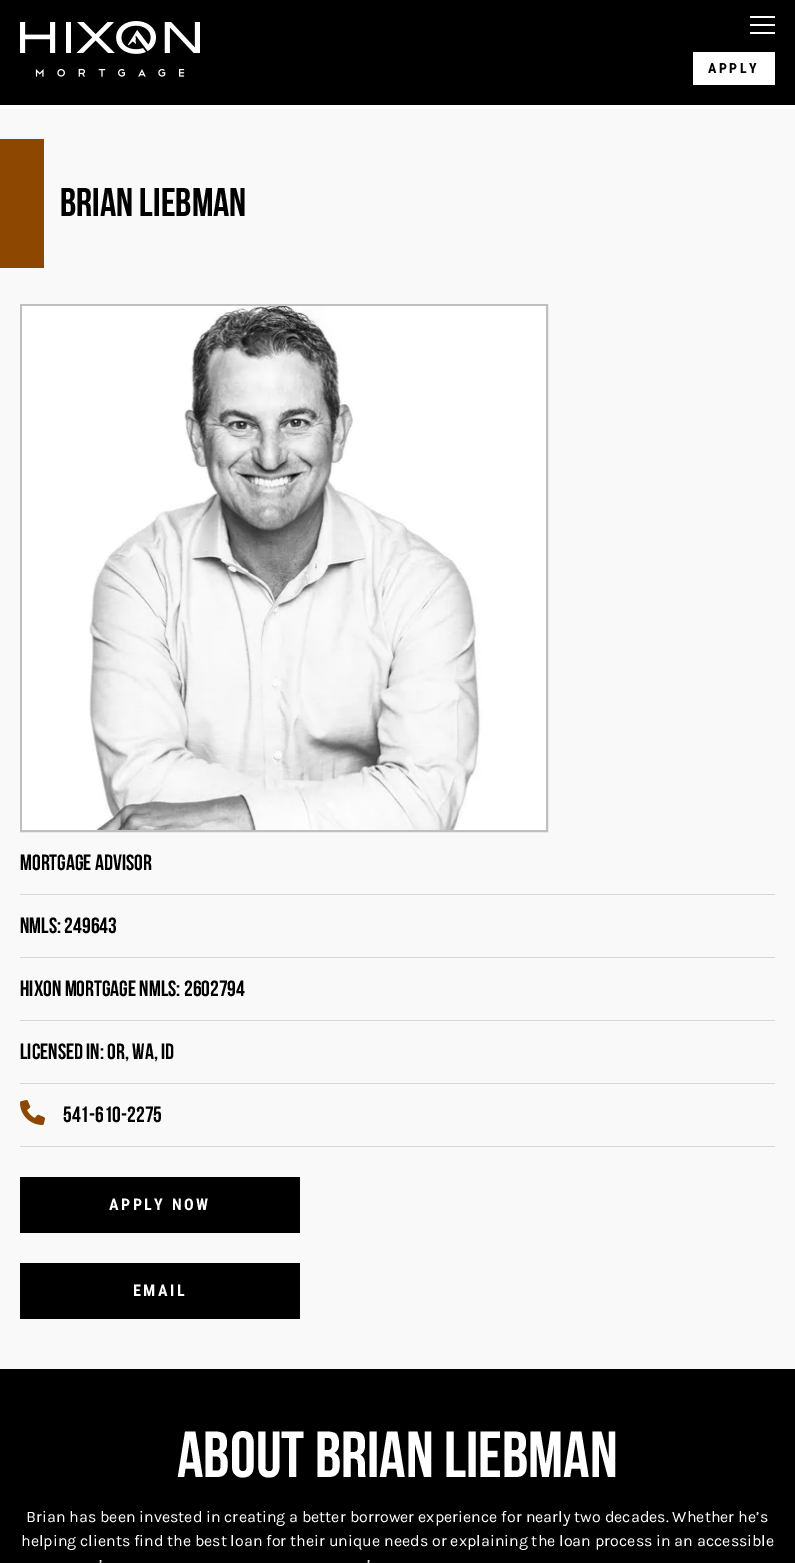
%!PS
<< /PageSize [795 1563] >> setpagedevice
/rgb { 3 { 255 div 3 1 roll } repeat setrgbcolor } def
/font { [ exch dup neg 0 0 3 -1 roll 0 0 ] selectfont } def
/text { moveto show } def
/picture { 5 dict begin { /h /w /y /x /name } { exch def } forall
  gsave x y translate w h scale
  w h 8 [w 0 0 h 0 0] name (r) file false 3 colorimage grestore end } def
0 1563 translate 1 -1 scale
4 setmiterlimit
255 255 255 rgb
0 0 795 1563 rectfill
0 0 0 rgb
0 0 795 105 rectfill
(img_01.rgb) 20 21 180 56 picture
255 255 255 rgb
750 16 25 2 rectfill
750 24 25 2 rectfill
750 32 25 2 rectfill
693 52 82 33 rectfill
249 249 249 rgb
0 109 795 1260 rectfill
142 71 0 rgb
0 139 44 129 rectfill
191 191 191 rgb
2 setlinewidth
21 305 526 526 rectstroke
(img_02.rgb) 22 306 524 524 picture
216 216 216 rgb
20 894 755 1 rectfill
20 957 755 1 rectfill
20 1020 755 1 rectfill
20 1083 755 1 rectfill
(img_03.rgb) 20 1100 25 25 picture
20 1146 755 1 rectfill
0 0 0 rgb
20 1177 280 56 rectfill
20 1263 280 56 rectfill
0 1369 795 194 rectfill
/RobotoCondensed-Bold 14 font
708 73 moveto 2.5 0 (APPLY) ashow
/BebasNeue-Regular 40 font
(Brian Liebman) 60 216 text
/BebasNeue-Regular 22 font
(Mortgage Advisor) 20 870 text
(NMLS: 249643) 20 933 text
(Hixon Mortgage NMLS: 2602794) 20 996 text
(Licensed In: OR, WA, ID) 20 1059 text
(541-610-2275) 63 1122 text
/RobotoCondensed-Bold 16 font
255 255 255 rgb
109 1210 moveto 2.5 0 (APPLY NOW) ashow
133 1296 moveto 2.5 0 (EMAIL) ashow
/BebasNeue-Regular 65 font
(About Brian Liebman) 177 1477 text
/Karla-Regular 16 font
(Brian has been invested in creating a better borrower experience for nearly two decades. Whether he’s) 26 1522 text
(helping clients find the best loan for their unique needs or explaining the loan process in an accessible) 21 1546 text
(’) 99 1570 text
(’) 367 1570 text
showpage
